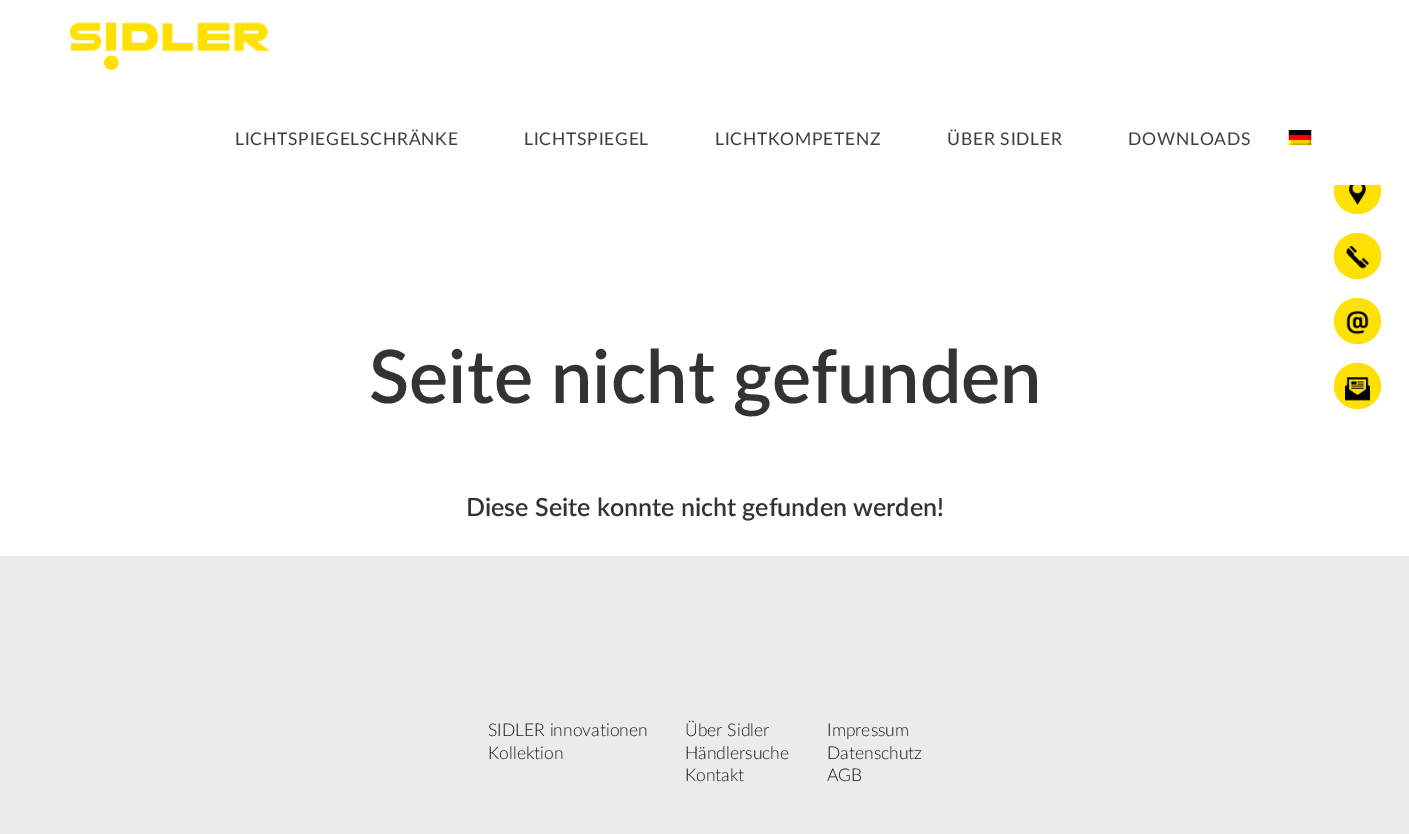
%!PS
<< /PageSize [1409 834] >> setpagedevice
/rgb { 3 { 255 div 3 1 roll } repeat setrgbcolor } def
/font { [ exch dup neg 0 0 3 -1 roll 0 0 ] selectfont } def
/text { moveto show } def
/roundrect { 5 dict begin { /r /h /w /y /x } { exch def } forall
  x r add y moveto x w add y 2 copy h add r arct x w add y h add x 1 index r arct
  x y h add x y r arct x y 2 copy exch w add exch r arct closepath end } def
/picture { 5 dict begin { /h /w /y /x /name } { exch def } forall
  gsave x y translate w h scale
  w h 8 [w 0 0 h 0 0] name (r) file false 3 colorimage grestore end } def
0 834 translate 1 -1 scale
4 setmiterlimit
255 255 255 rgb
0 0 1409 834 rectfill
254 225 0 rgb
1334 168 47 46 23 roundrect fill
255 255 255 rgb
1334 168 47 17 rectfill
(img_01.rgb) 70 22 200 48 picture
(img_02.rgb) 1288 130 24 15 picture
235 235 235 rgb
0 556 1409 278 rectfill
(img_03.rgb) 1349 185 17 20 picture
254 225 0 rgb
1334 233 47 46 23 roundrect fill
(img_04.rgb) 1346 245 24 24 picture
1334 298 47 46 23 roundrect fill
(img_05.rgb) 1346 310 23 25 picture
1334 363 47 46 23 roundrect fill
(img_06.rgb) 1345 377 25 24 picture
/Lato-Regular 17.5 font
63 63 63 rgb
235 145 moveto 0.75 0 (LICHTSPIEGELSCHRÄNKE) ashow
524 145 moveto 0.75 0 (LICHTSPIEGEL) ashow
715 145 moveto 0.75 0 (LICHTKOMPETENZ) ashow
947 145 moveto 0.75 0 (ÜBER SIDLER) ashow
1128 145 moveto 0.75 0 (DOWNLOADS) ashow
/Lato-SemiBold 73.75 font
51 51 51 rgb
(Seite nicht gefunden) 369 403 text
/Lato-SemiBold 25 font
(Diese Seite konnte nicht gefunden werden!) 466 516 text
/Lato-Light 17.5 font
23 23 23 rgb
(SIDLER innovationen) 488 736 text
(Kollektion) 488 759 text
(Über Sidler) 685 736 text
(Händlersuche) 685 759 text
(Kontakt) 685 781 text
(Impressum) 827 736 text
(Datenschutz) 827 759 text
(AGB) 827 781 text
showpage
